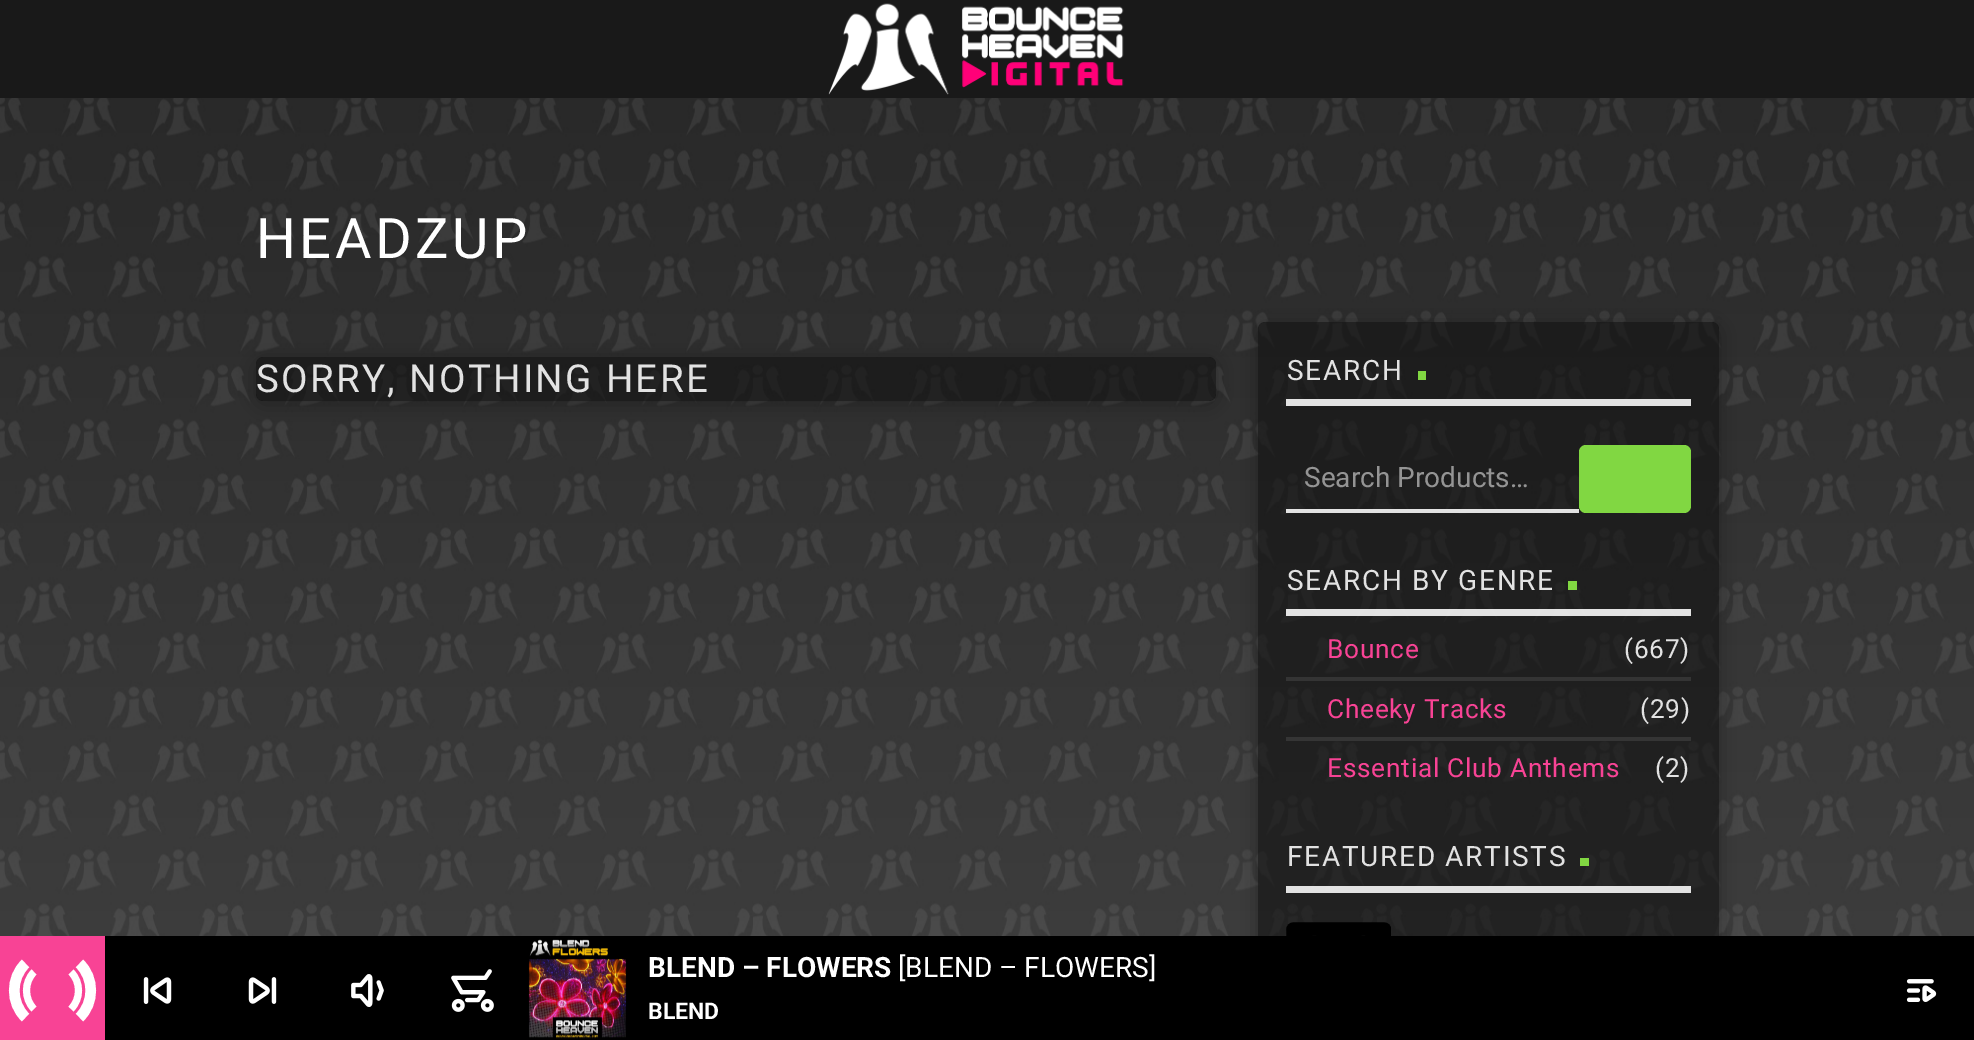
%!PS
<< /PageSize [1974 1040] /PageUsesTransparency true >> setpagedevice
/rgb { 3 { 255 div 3 1 roll } repeat setrgbcolor } def
/font { [ exch dup neg 0 0 3 -1 roll 0 0 ] selectfont } def
/text { moveto show } def
/alpha { dup .setfillconstantalpha .setstrokeconstantalpha } def
/roundrect { 5 dict begin { /r /h /w /y /x } { exch def } forall
  x r add y moveto x w add y 2 copy h add r arct x w add y h add x 1 index r arct
  x y h add x y r arct x y 2 copy exch w add exch r arct closepath end } def
/shadow { 12 dict begin { /a /b /q /h /w /y /x } { exch def } forall gsave /was 0 def
  9 -2 -9 { dup b mul 4 div /e exch def 1 sub .425 mul 2.718 exch exp 1 add a .99 .min exch div /now exch def
    1 1 now sub 1 was sub div sub alpha /was now def
    w h .min e 2 mul add 0 gt { x e sub y e sub w e 2 mul add h e 2 mul add
      q e add b .6 mul add w h .min 2 div e add .min 0 .max roundrect fill } if } for grestore end } def
/picture { 5 dict begin { /h /w /y /x /name } { exch def } forall
  gsave x y translate w h scale
  w h 8 [w 0 0 h 0 0] name (r) file false 3 colorimage grestore end } def
0 .pushpdf14devicefilter
0 1040 translate 1 -1 scale
4 setmiterlimit
255 255 255 rgb
0 0 1974 1040 rectfill
25 25 25 rgb
0 0 1974 98 rectfill
(img_01.rgb) 828 3 296 92 picture
(img_02.rgb) 0 98 1974 838 picture
gsave
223 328 moveto 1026 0 rlineto 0 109 rlineto -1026 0 rlineto closepath 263 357 moveto 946 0 rlineto 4 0 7 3 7 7 rcurveto 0 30 rlineto 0 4 -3 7 -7 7 rcurveto -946 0 rlineto -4 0 -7 -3 -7 -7 rcurveto 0 -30 rlineto 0 -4 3 -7 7 -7 rcurveto closepath eoclip newpath
0 0 0 rgb
256 361 960 43 7 10.5 0.3 shadow
grestore
0.61 alpha
17 17 17 rgb
256 357 960 44 7 roundrect fill
gsave
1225 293 moveto 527 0 rlineto 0 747 rlineto -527 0 rlineto closepath 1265 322 moveto 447 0 rlineto 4 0 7 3 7 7 rcurveto 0 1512 rlineto 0 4 -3 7 -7 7 rcurveto -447 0 rlineto -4 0 -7 -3 -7 -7 rcurveto 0 -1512 rlineto 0 -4 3 -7 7 -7 rcurveto closepath eoclip newpath
1 alpha
0 0 0 rgb
1258 326 461 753 7 10.5 0.3 shadow
grestore
1258 322 461 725 7 roundrect fill
0.87 alpha
255 255 255 rgb
1286 399 405 7 rectfill
1 alpha
129 215 66 rgb
1418 371 8 9 rectfill
0.87 alpha
255 255 255 rgb
1286 509 293 4 rectfill
1 alpha
129 215 66 rgb
1579 445 112 68 7 roundrect fill
0.87 alpha
255 255 255 rgb
1286 609 405 7 rectfill
1 alpha
129 215 66 rgb
1568 581 9 9 rectfill
52 52 52 rgb
1286 677 405 4 rectfill
53 53 53 rgb
1286 737 405 4 rectfill
0.87 alpha
255 255 255 rgb
1286 886 405 7 rectfill
1 alpha
129 215 66 rgb
1580 858 9 8 rectfill
(img_03.rgb) 1286 922 105 14 picture
0 0 0 rgb
105 936 1869 104 rectfill
248 67 149 rgb
0 936 105 104 rectfill
255 255 255 rgb
7 setlinewidth
71 972 moveto 10 10 10 27 0 37 rcurveto 34 1009 moveto -10 -10 -10 -27 0 -37 rcurveto stroke
10.5 setlinewidth
79.5 963.5 moveto 15 14.5 15 39.5 0 54 rcurveto stroke
25.5 1017.5 moveto -15 -14.5 -15 -39.5 0 -54 rcurveto stroke
(img_04.rgb) 143 977 29 27 picture
(img_05.rgb) 248 977 29 27 picture
(img_06.rgb) 351 974 33 33 picture
(img_07.rgb) 451 969 43 43 picture
(img_08.rgb) 528 939 99 100 picture
(img_09.rgb) 1906 979 31 23 picture
/Roboto-Regular 56 font
256 258 moveto 3.5 0 (HEADZUP) ashow
/Roboto-Regular 38.5 font
226 226 226 rgb
256 392 moveto 2.3 0 (SORRY, NOTHING HERE) ashow
/Roboto-Regular 28 font
1287 380 moveto 1.7 0 (SEARCH) ashow
148 148 148 rgb
(Search Products…) 1304 487 text
226 226 226 rgb
1287 590 moveto 1.7 0 (SEARCH BY GENRE) ashow
/Roboto-Regular 26.25 font
248 67 149 rgb
1327 658 moveto 0.75 0 (Bounce) ashow
226 226 226 rgb
1624 658 moveto 0.75 0 (\(667\)) ashow
248 67 149 rgb
1327 718 moveto 0.75 0 (Cheeky Tracks) ashow
226 226 226 rgb
1640 718 moveto 0.75 0 (\(29\)) ashow
248 67 149 rgb
1327 777 moveto 0.75 0 (Essential Club Anthems) ashow
226 226 226 rgb
1655 777 moveto 0.75 0 (\(2\)) ashow
/Roboto-Regular 28 font
1287 866 moveto 1.7 0 (FEATURED ARTISTS) ashow
/Roboto-Bold 28 font
255 255 255 rgb
(BLEND – FLOWERS) 648 977 text
/Roboto-Regular 28 font
([BLEND – FLOWERS]) 898 977 text
/Roboto-Bold 23 font
(BLEND) 648 1019 text
.poppdf14devicefilter showpage
